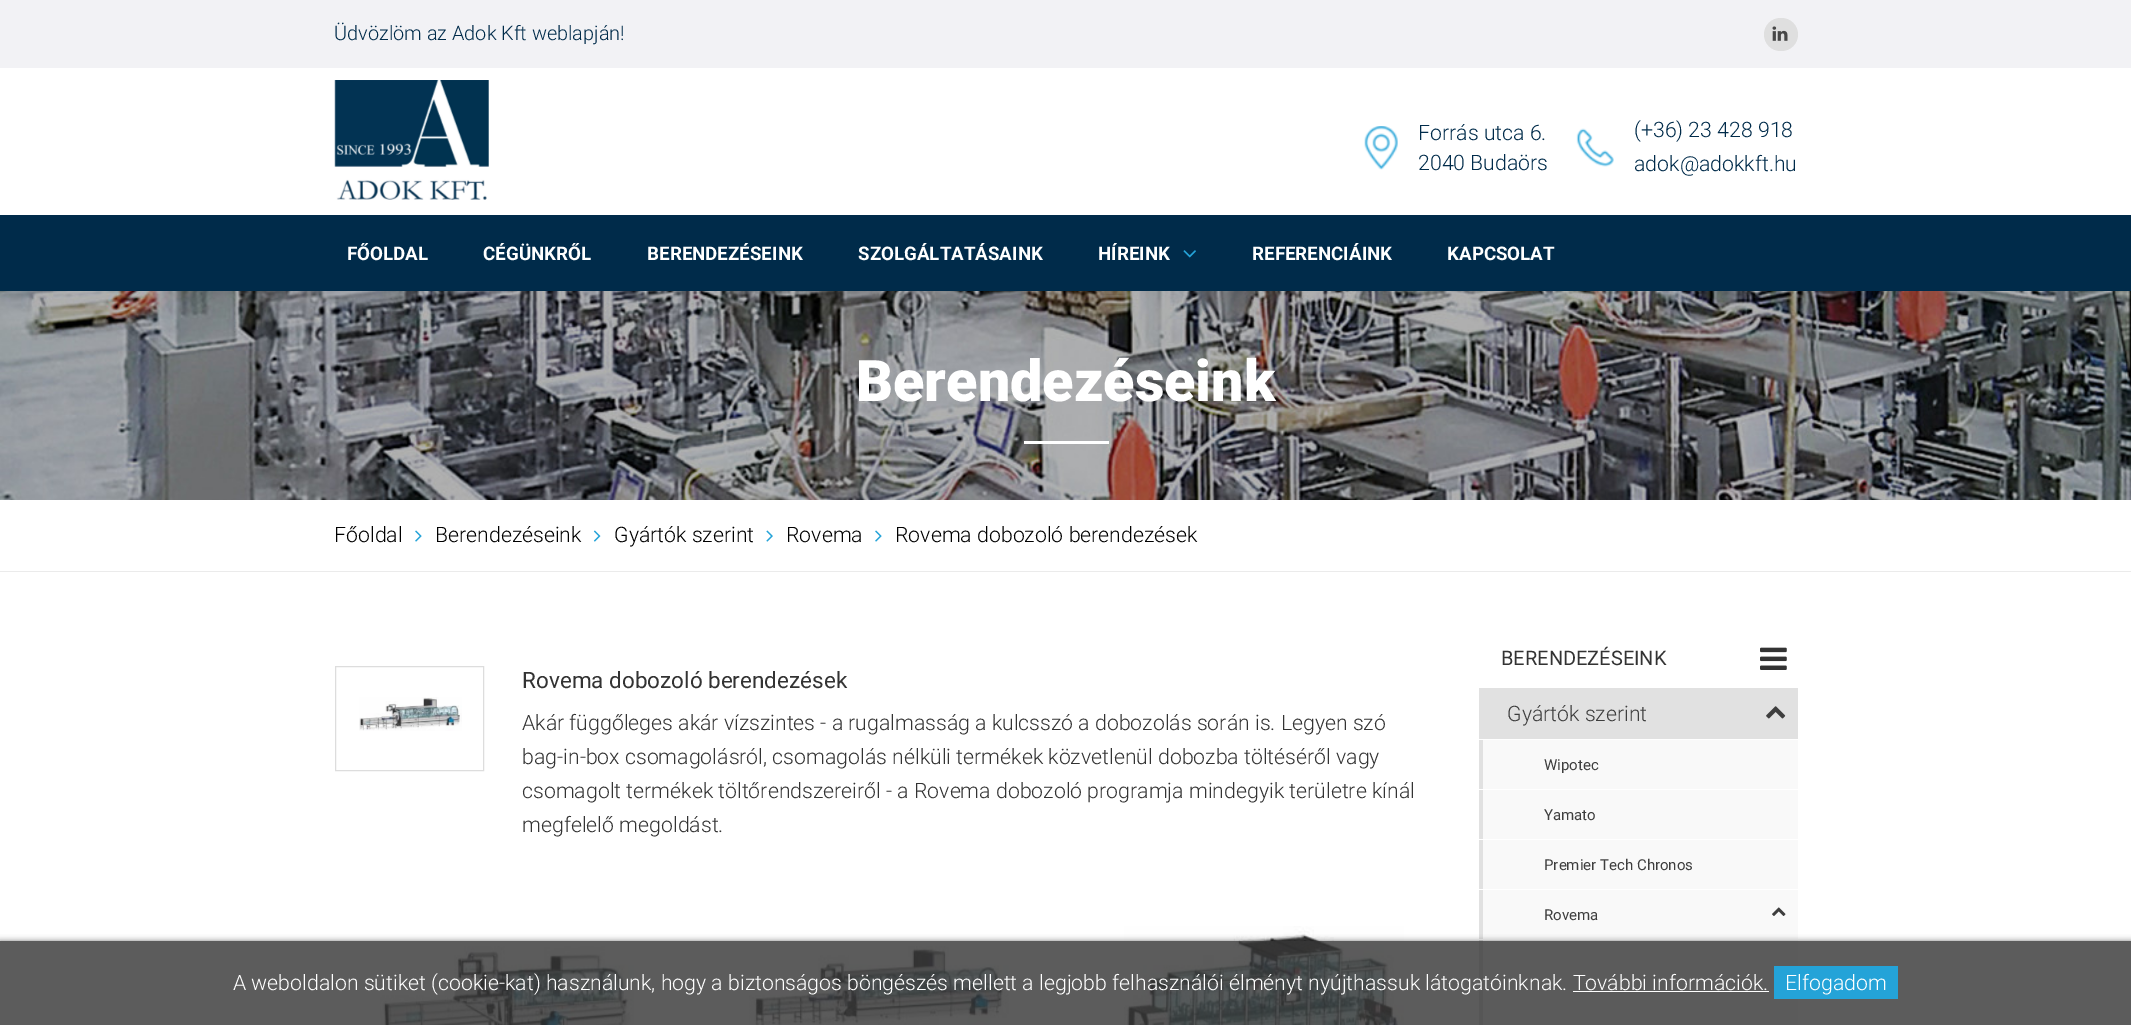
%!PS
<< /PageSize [2131 1025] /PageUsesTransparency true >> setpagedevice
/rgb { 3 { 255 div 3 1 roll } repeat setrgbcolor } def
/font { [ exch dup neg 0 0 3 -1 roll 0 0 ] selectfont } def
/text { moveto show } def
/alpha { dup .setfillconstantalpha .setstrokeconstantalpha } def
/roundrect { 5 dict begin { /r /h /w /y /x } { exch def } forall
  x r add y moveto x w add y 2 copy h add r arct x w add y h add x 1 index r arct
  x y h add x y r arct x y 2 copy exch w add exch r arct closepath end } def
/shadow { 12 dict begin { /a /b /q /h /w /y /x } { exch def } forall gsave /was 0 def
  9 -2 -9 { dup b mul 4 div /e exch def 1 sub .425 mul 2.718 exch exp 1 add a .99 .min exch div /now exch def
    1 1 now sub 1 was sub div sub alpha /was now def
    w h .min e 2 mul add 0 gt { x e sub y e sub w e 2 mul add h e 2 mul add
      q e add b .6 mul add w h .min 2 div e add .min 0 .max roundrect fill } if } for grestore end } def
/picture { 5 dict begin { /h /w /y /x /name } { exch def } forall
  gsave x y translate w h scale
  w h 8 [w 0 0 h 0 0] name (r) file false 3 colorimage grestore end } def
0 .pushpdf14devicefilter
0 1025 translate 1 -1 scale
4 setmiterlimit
255 255 255 rgb
0 0 2131 1025 rectfill
242 242 245 rgb
0 0 2131 68 rectfill
223 223 223 rgb
1764 18 34 33 16.5 roundrect fill
(img_01.rgb) 1772 26 16 15 picture
(img_02.rgb) 334 80 155 120 picture
(img_03.rgb) 1364 126 34 44 picture
(img_04.rgb) 1576 128 38 39 picture
0 43 74 rgb
0 215 2131 76 rectfill
(img_05.rgb) 1183 250 13 8 picture
(img_06.rgb) 0 291 2131 209 picture
255 255 255 rgb
1024 441 85 3 rectfill
(img_07.rgb) 415 530 7 12 picture
(img_08.rgb) 593 530 8 12 picture
(img_09.rgb) 766 530 7 12 picture
(img_07.rgb) 875 530 7 12 picture
235 235 235 rgb
0 571 2131 1 rectfill
221 221 221 rgb
335.5 666.5 148 104 rectstroke
(img_10.rgb) 359 697 103 34 picture
(img_11.rgb) 380 946 254 79 picture
(img_12.rgb) 749 946 260 79 picture
(img_13.rgb) 1124 926 280 99 picture
(img_14.rgb) 1760 647 27 23 picture
225 225 225 rgb
1479 688 319 51 rectfill
(img_15.rgb) 1766 706 20 13 picture
249 249 249 rgb
1483 740 315 49 rectfill
225 225 225 rgb
1479 740 4 49 rectfill
249 249 249 rgb
1483 790 315 49 rectfill
225 225 225 rgb
1479 790 4 49 rectfill
249 249 249 rgb
1483 840 315 49 rectfill
225 225 225 rgb
1479 840 4 49 rectfill
249 249 249 rgb
1483 890 315 49 rectfill
225 225 225 rgb
1479 890 4 49 rectfill
(img_16.rgb) 1772 907 14 9 picture
249 249 249 rgb
1483 940 315 49 rectfill
225 225 225 rgb
1479 940 4 49 rectfill
249 249 249 rgb
1483 990 315 35 rectfill
225 225 225 rgb
1479 990 4 35 rectfill
gsave
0 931 moveto 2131 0 rlineto 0 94 rlineto -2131 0 rlineto closepath 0 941 moveto 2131 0 rlineto 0 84 rlineto -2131 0 rlineto closepath eoclip newpath
0 0 0 rgb
0 941 2131 84 0 3 0.5 shadow
grestore
0.8 alpha
51 51 51 rgb
0 941 2131 84 rectfill
1 alpha
36 163 216 rgb
1774 966 124 33 rectfill
255 255 255 rgb
1573 991 196 1 rectfill
/Roboto-Light 19.9 font
0 43 74 rgb
(Üdvözlöm az Adok Kft weblapján!) 334 40 text
/Roboto-Light 21.25 font
(Forrás utca 6.) 1418 140 text
(2040 Budaörs) 1418 170 text
(\(+36\) 23 428 918) 1634 137 text
(adok@adokkft.hu) 1634 171 text
/Roboto-Bold 18.75 font
255 255 255 rgb
(FŐOLDAL) 347 260 text
(CÉGÜNKRŐL) 483 260 text
(BERENDEZÉSEINK) 647 260 text
(SZOLGÁLTATÁSAINK) 858 260 text
(HÍREINK) 1098 260 text
(REFERENCIÁINK) 1252 260 text
(KAPCSOLAT) 1447 260 text
/Roboto-Black 57.5 font
(Berendezéseink) 856 401 text
/Roboto-Light 21.25 font
0 0 0 rgb
(Főoldal) 334 542 text
(Berendezéseink) 435 542 text
(Gyártók szerint) 614 542 text
(Rovema) 786 542 text
(Rovema dobozoló berendezések) 895 542 text
/Roboto-Regular 22.5 font
51 51 51 rgb
(Rovema dobozoló berendezések) 522 688 text
/Roboto-Light 21.25 font
(Akár függőleges akár vízszintes - a rugalmasság a kulcsszó a dobozolás során is. Legyen szó) 522 730 text
(bag-in-box csomagolásról, csomagolás nélküli termékek közvetlenül dobozba töltéséről vagy) 522 764 text
(csomagolt termékek töltőrendszereiről - a Rovema dobozoló programja mindegyik területre kínál) 522 798 text
(megfelelő megoldást.) 522 832 text
/Roboto-Regular 20 font
(BERENDEZÉSEINK) 1501 665 text
/Roboto-Light 21.25 font
62 62 62 rgb
(Gyártók szerint) 1507 721 text
/Roboto-Regular 15 font
(Wipotec) 1544 770 text
(Yamato) 1544 820 text
(Premier Tech Chronos) 1544 870 text
(Rovema) 1544 920 text
/Roboto-Light 21.25 font
255 255 255 rgb
(A weboldalon sütiket \(cookie-kat\) használunk, hogy a biztonságos böngészés mellett a legjobb felhasználói élményt nyújthassuk látogatóinknak. További információk.) 233 990 text
(Elfogadom) 1785 990 text
.poppdf14devicefilter showpage
